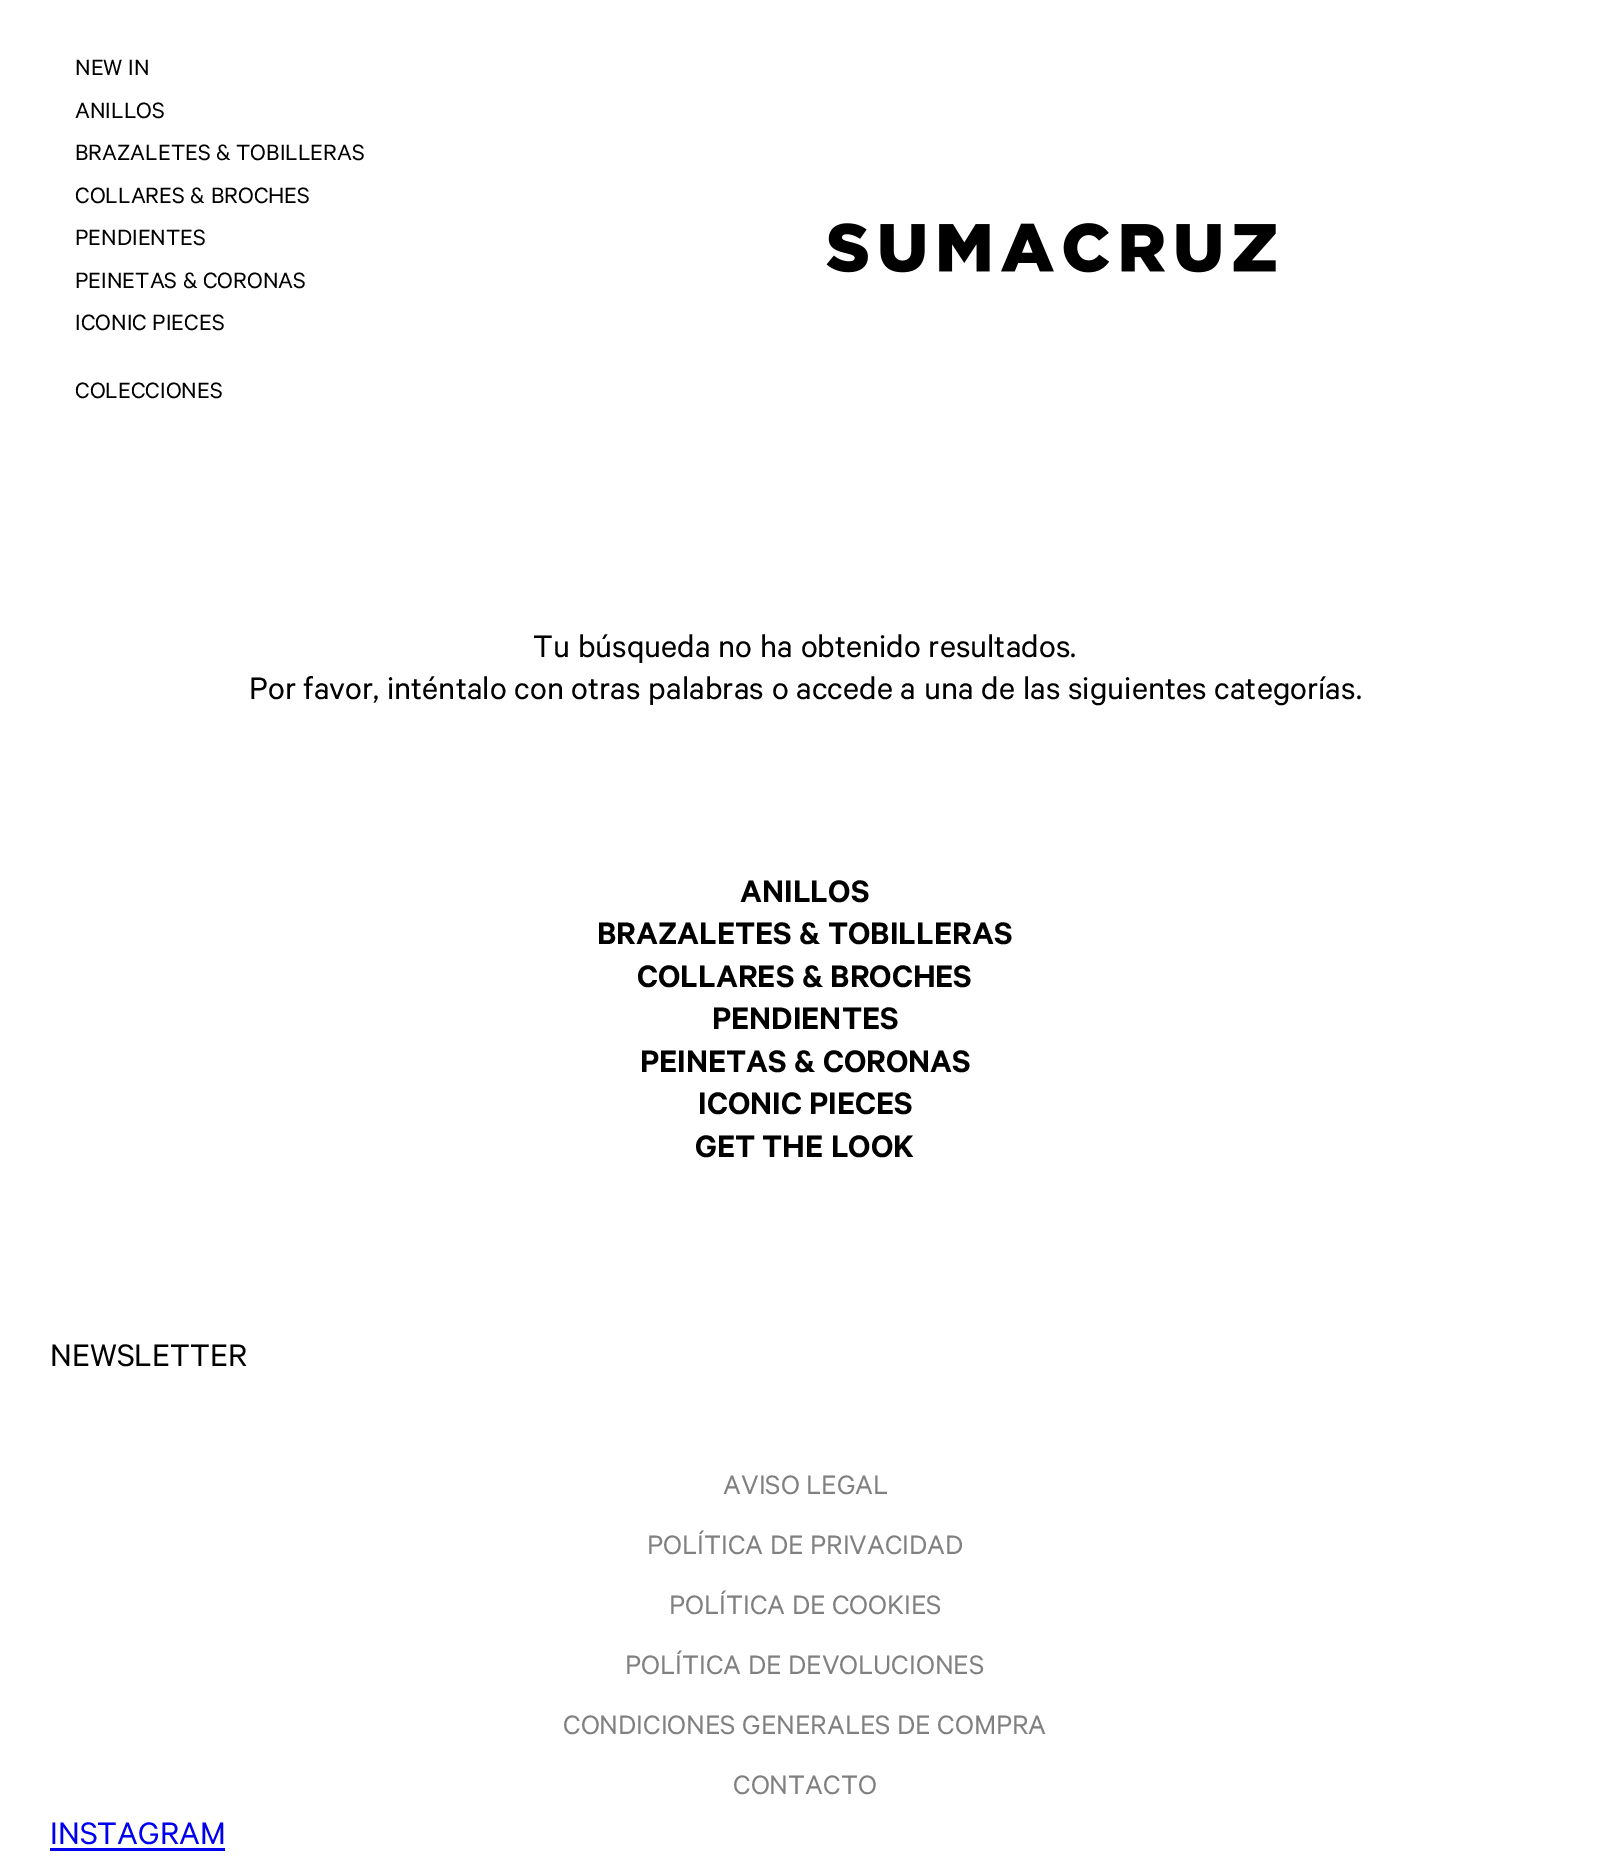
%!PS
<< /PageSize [1608 1872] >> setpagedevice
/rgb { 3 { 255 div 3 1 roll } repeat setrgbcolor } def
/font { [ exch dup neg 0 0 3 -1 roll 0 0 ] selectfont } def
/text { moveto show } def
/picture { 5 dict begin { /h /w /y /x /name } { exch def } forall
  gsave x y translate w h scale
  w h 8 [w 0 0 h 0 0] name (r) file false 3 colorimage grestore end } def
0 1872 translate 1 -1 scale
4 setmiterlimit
255 255 255 rgb
0 0 1608 1872 rectfill
(img_01.rgb) 826 223 450 50 picture
0 0 238 rgb
50 1848 175 3 rectfill
/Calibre-Regular 25 font
0 0 0 rgb
(NEW IN) 75 75 text
(ANILLOS) 75 118 text
(BRAZALETES & TOBILLERAS) 75 160 text
(COLLARES & BROCHES) 75 203 text
(PENDIENTES) 75 245 text
(PEINETAS & CORONAS) 75 288 text
(ICONIC PIECES) 75 330 text
(COLECCIONES) 75 398 text
/Calibre-Regular 35 font
(Tu búsqueda no ha obtenido resultados.) 533 657 text
(Por favor, inténtalo con otras palabras o accede a una de las siguientes categorías.) 249 699 text
/Calibre-SemiBold 35 font
(ANILLOS) 740 902 text
(BRAZALETES & TOBILLERAS) 597 944 text
(COLLARES & BROCHES) 637 987 text
(PENDIENTES) 712 1029 text
(PEINETAS & CORONAS) 640 1072 text
(ICONIC PIECES) 698 1114 text
(GET THE LOOK) 695 1157 text
/Calibre-Regular 35 font
(NEWSLETTER) 50 1366 text
/Calibre-Regular 30 font
128 128 128 rgb
(AVISO LEGAL) 723 1494 text
(POLÍTICA DE PRIVACIDAD) 647 1554 text
(POLÍTICA DE COOKIES) 669 1614 text
(POLÍTICA DE DEVOLUCIONES) 625 1674 text
(CONDICIONES GENERALES DE COMPRA) 563 1734 text
(CONTACTO) 733 1794 text
/Calibre-Regular 35 font
0 0 238 rgb
(INSTAGRAM) 50 1844 text
showpage
